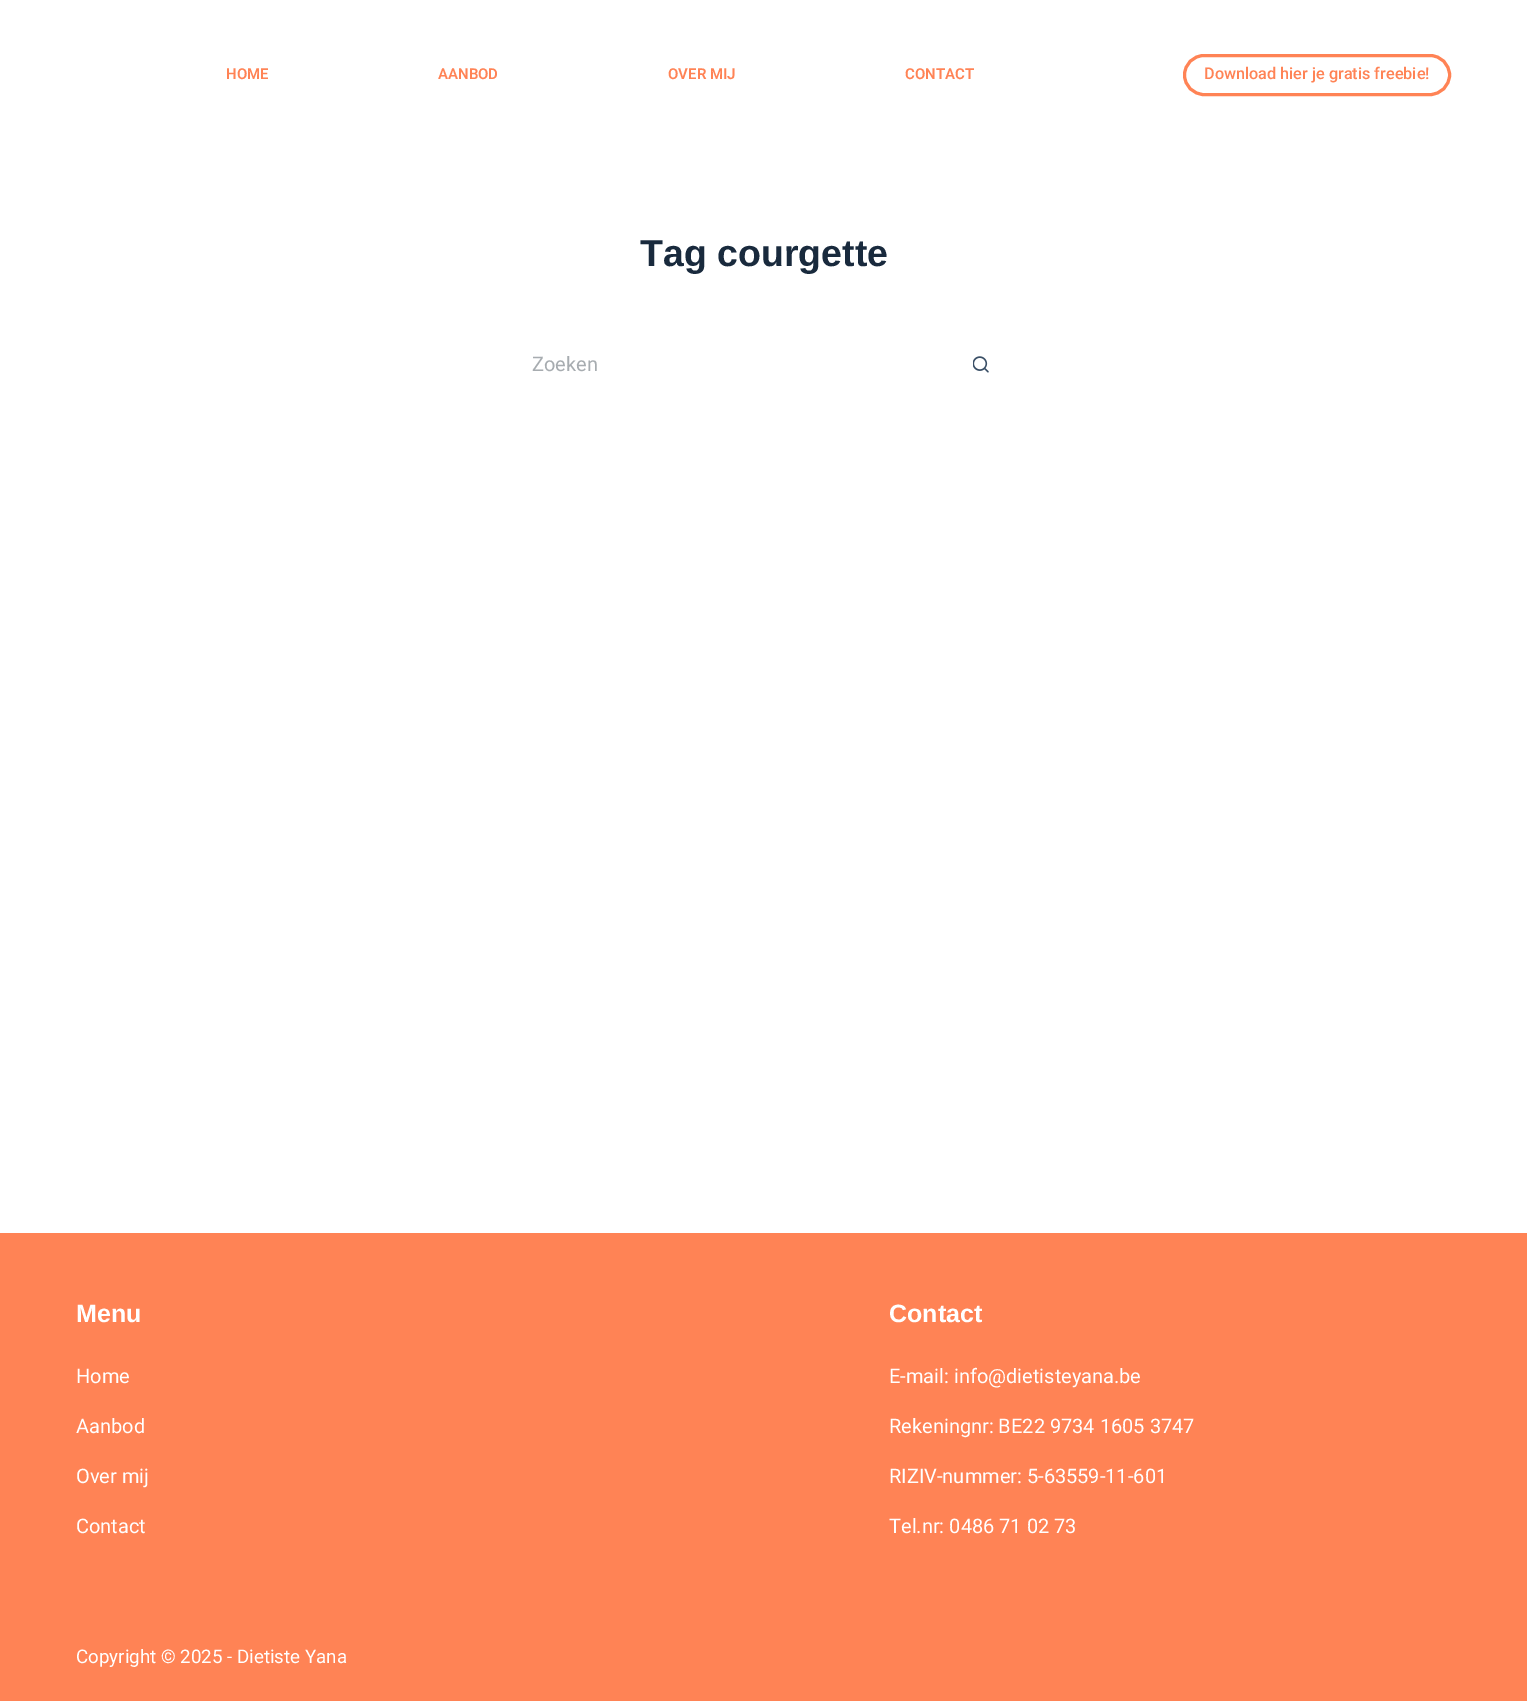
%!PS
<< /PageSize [1527 1701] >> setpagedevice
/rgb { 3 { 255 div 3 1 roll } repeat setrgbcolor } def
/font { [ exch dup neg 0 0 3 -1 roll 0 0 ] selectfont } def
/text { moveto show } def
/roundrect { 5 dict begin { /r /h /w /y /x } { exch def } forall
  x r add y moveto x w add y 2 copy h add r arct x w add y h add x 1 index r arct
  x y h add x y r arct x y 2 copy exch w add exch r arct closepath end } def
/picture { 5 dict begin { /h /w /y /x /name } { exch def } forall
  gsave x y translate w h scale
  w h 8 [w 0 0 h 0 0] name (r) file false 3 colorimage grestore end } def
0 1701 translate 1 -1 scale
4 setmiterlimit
255 255 255 rgb
0 0 1527 1701 rectfill
255 131 85 rgb
3 setlinewidth
1184.5 55.5 265 39 19.5 roundrect stroke
(img_01.rgb) 973 356 16 17 picture
0 1233 1527 468 rectfill
/Roboto-SemiBold 15 font
(HOME) 226 79 text
(AANBOD) 438 79 text
(OVER MIJ) 668 79 text
(CONTACT) 905 79 text
/Roboto-Medium 16.25 font
(Download hier je gratis freebie!) 1204 79 text
/LiberationSans-Bold 37.5 font
25 42 61 rgb
(Tag courgette) 640 266 text
/Roboto-Regular 20 font
167 172 176 rgb
(Zoeken) 532 371 text
/LiberationSans-Bold 25 font
255 255 255 rgb
(Menu) 76 1322 text
/Roboto-Regular 20 font
(Home) 76 1383 text
(Aanbod) 76 1433 text
(Over mij) 76 1483 text
(Contact) 76 1533 text
/LiberationSans-Bold 25 font
(Contact) 889 1322 text
/Roboto-Regular 20 font
(E-mail: info@dietisteyana.be) 889 1383 text
(Rekeningnr: BE22 9734 1605 3747) 889 1433 text
(RIZIV-nummer: 5-63559-11-601) 889 1483 text
(Tel.nr: 0486 71 02 73) 889 1533 text
/Roboto-Regular 18.75 font
(Copyright © 2025 - Dietiste Yana) 76 1663 text
showpage
